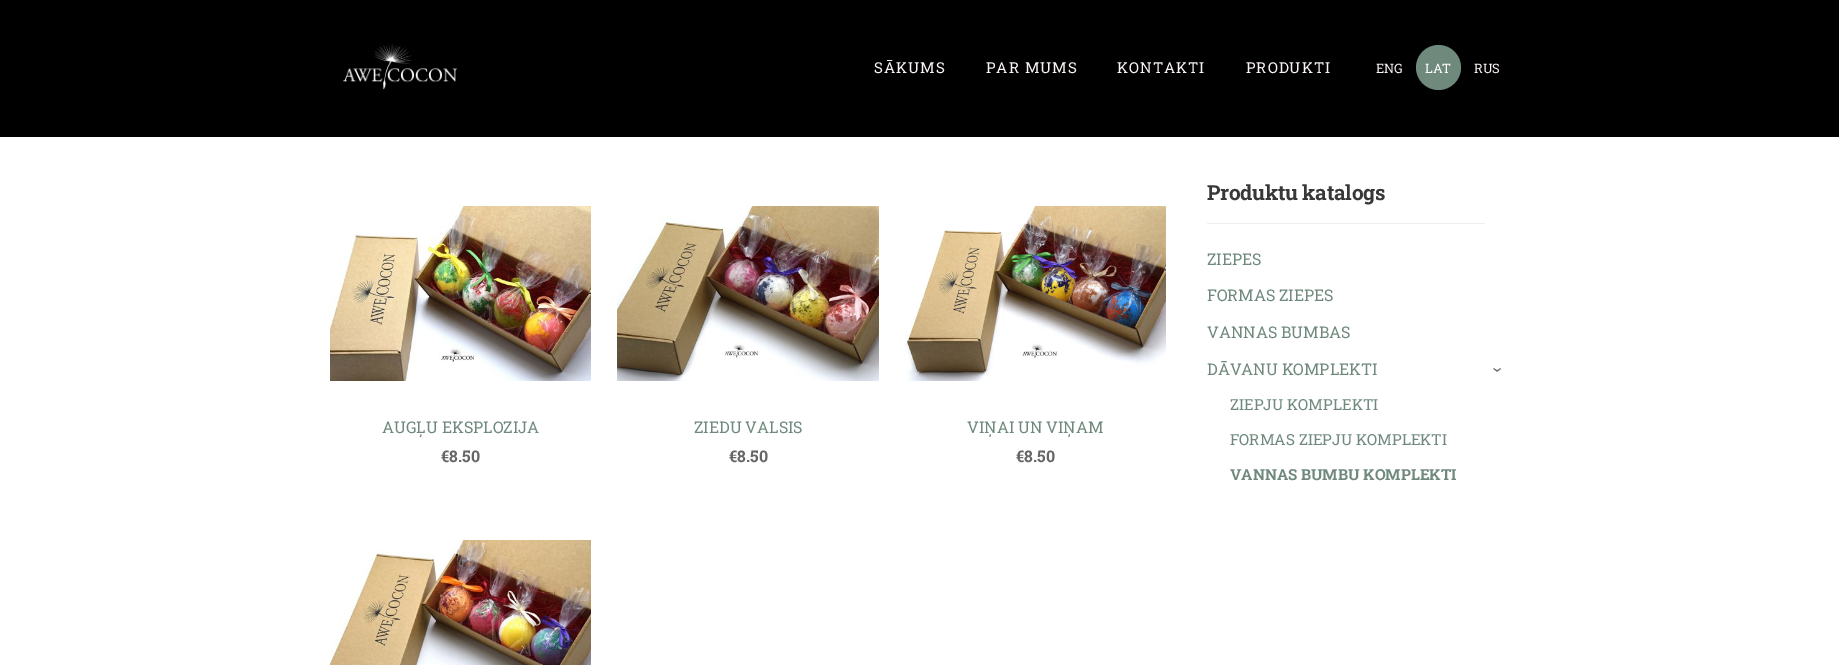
%!PS
<< /PageSize [1839 665] >> setpagedevice
/rgb { 3 { 255 div 3 1 roll } repeat setrgbcolor } def
/font { [ exch dup neg 0 0 3 -1 roll 0 0 ] selectfont } def
/text { moveto show } def
/circle { newpath 0 360 arc closepath } def
/picture { 5 dict begin { /h /w /y /x /name } { exch def } forall
  gsave x y translate w h scale
  w h 8 [w 0 0 h 0 0] name (r) file false 3 colorimage grestore end } def
0 665 translate 1 -1 scale
4 setmiterlimit
255 255 255 rgb
0 0 1839 665 rectfill
0 0 0 rgb
0 0 1839 137 rectfill
(img_01.rgb) 343 43 114 47 picture
112 137 125 rgb
1438.5 67.5 22.5 circle fill
(img_02.rgb) 330 206 261 175 picture
(img_03.rgb) 617 206 262 175 picture
(img_04.rgb) 905 206 261 175 picture
(img_05.rgb) 330 540 261 125 picture
238 238 238 rgb
1207 223 278 1 rectfill
/RobotoSlab-Regular 15 font
251 244 244 rgb
874 73 moveto 1 0 (SĀKUMS) ashow
986 73 moveto 1 0 (PAR MUMS) ashow
1117 73 moveto 1 0 (KONTAKTI) ashow
1246 73 moveto 1 0 (PRODUKTI) ashow
/RobotoSlab-Regular 13 font
(ENG) 1376 73 text
255 255 255 rgb
(LAT) 1425 73 text
251 244 244 rgb
(RUS) 1474 73 text
/RobotoSlab-Regular 16 font
112 137 125 rgb
(AUGĻU EKSPLOZIJA) 382 433 text
/RobotoSlab-Bold 16 font
102 102 102 rgb
(€8.50) 441 462 text
/RobotoSlab-Regular 16 font
112 137 125 rgb
(ZIEDU VALSIS) 694 433 text
/RobotoSlab-Bold 16 font
102 102 102 rgb
(€8.50) 729 462 text
/RobotoSlab-Regular 16 font
112 137 125 rgb
(VIŅAI UN VIŅAM) 967 433 text
/RobotoSlab-Bold 16 font
102 102 102 rgb
(€8.50) 1016 462 text
/RobotoSlab-Bold 20.75 font
56 56 56 rgb
1207 200 moveto -0.3 0 (Produktu katalogs) ashow
/RobotoSlab-Regular 16 font
112 137 125 rgb
(ZIEPES) 1207 265 text
(FORMAS ZIEPES) 1207 301 text
(VANNAS BUMBAS) 1207 338 text
(DĀVANU KOMPLEKTI) 1207 375 text
/RobotoSlab-Regular 19 font
102 102 102 rgb
gsave 1492 367 translate 90 rotate 0 0 moveto (›) show grestore
/RobotoSlab-Regular 15.25 font
112 137 125 rgb
(ZIEPJU KOMPLEKTI) 1230 410 text
(FORMAS ZIEPJU KOMPLEKTI) 1230 445 text
/RobotoSlab-Bold 15.25 font
(VANNAS BUMBU KOMPLEKTI) 1230 480 text
showpage
